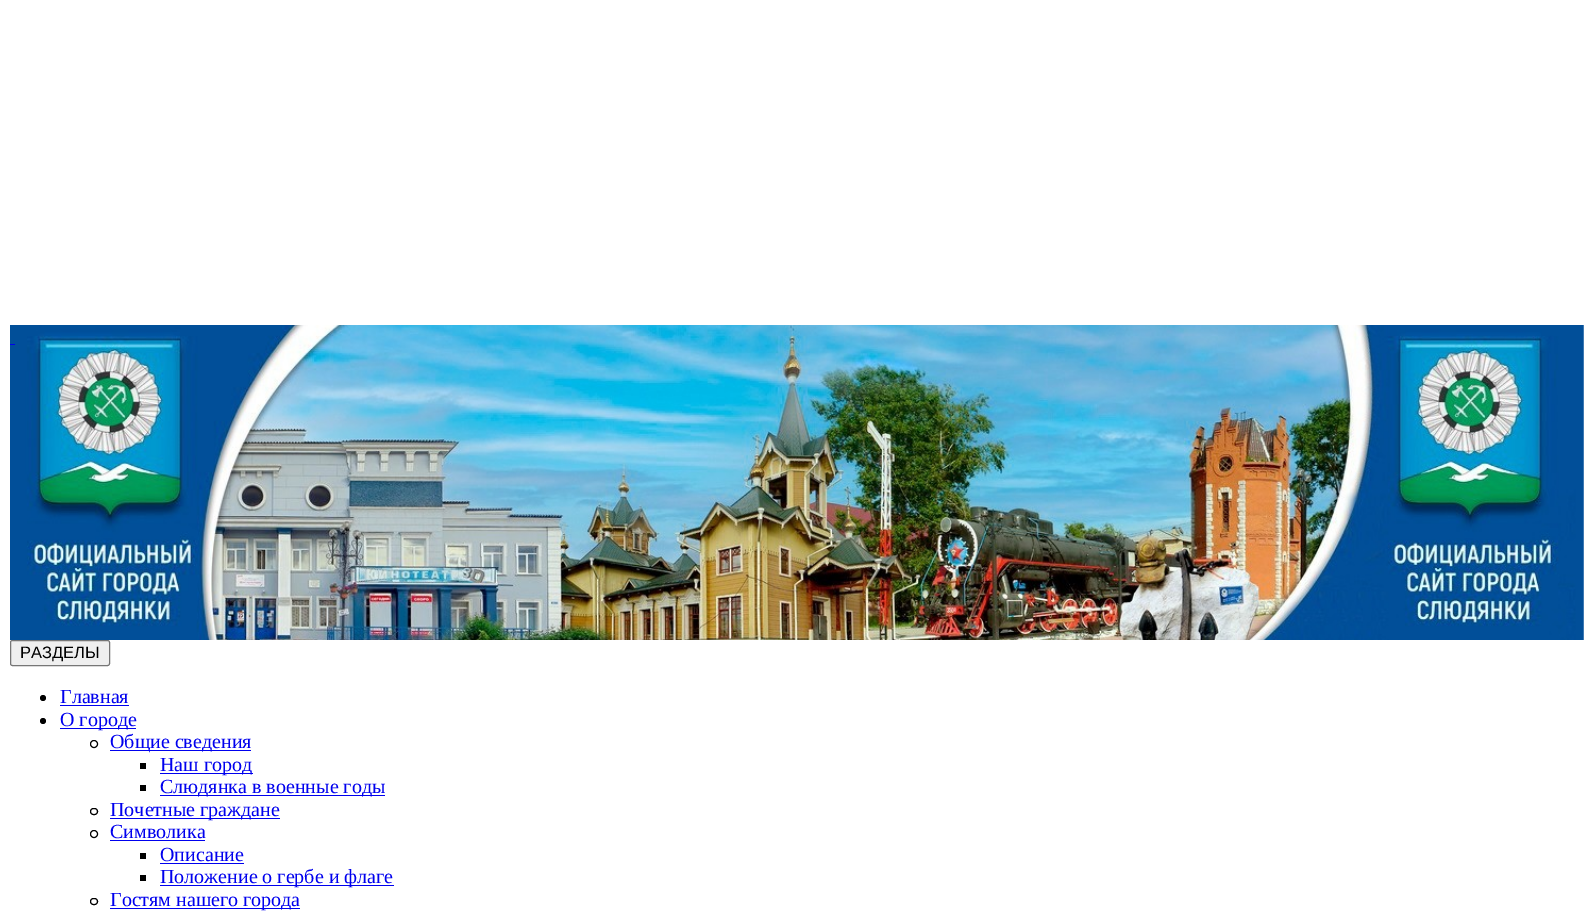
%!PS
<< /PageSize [1593 920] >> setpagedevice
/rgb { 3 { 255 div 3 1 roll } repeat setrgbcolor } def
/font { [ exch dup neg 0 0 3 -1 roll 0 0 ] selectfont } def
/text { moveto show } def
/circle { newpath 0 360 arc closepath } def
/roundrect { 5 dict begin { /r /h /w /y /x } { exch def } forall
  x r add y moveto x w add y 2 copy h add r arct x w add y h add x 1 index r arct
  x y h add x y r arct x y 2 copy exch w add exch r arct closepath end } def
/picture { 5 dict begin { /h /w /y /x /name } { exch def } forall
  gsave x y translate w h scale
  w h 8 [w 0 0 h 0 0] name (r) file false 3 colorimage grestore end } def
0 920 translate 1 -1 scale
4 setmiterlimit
255 255 255 rgb
0 0 1593 920 rectfill
(img_01.rgb) 10 325 1574 315 picture
0 0 238 rgb
10 344 5 1 rectfill
239 239 239 rgb
10.5 640.5 99 25 2 roundrect gsave fill grestore
118 118 118 rgb
stroke
0 0 0 rgb
43 698 3 circle fill
0 0 238 rgb
60 705 69 1 rectfill
0 0 0 rgb
43 721 3 circle fill
0 0 238 rgb
60 728 76 1 rectfill
0 0 0 rgb
94 744 3.5 circle stroke
0 0 238 rgb
110 750 141 1 rectfill
0 0 0 rgb
140 763 6 6 rectfill
0 0 238 rgb
160 773 93 1 rectfill
0 0 0 rgb
140 785 6 6 rectfill
0 0 238 rgb
160 795 225 1 rectfill
0 0 0 rgb
90.5 808.5 7 6 3 roundrect stroke
0 0 238 rgb
110 818 170 1 rectfill
0 0 0 rgb
94 834 3.5 circle stroke
0 0 238 rgb
110 840 95 1 rectfill
0 0 0 rgb
140 853 6 6 rectfill
0 0 238 rgb
160 863 84 1 rectfill
0 0 0 rgb
140 875 6 6 rectfill
0 0 238 rgb
160 885 234 1 rectfill
0 0 0 rgb
90.5 898.5 7 6 3 roundrect stroke
0 0 238 rgb
110 908 190 1 rectfill
/LiberationSans-Regular 16.5 font
0 0 0 rgb
(РАЗДЕЛЫ) 20 658 text
/LiberationSerif-Regular 20 font
0 0 238 rgb
(Главная) 60 703 text
(О городе) 60 726 text
(Общие сведения) 110 748 text
(Наш город) 160 771 text
(Слюдянка в военные годы) 160 793 text
(Почетные граждане) 110 816 text
(Символика) 110 838 text
(Описание) 160 861 text
(Положение о гербе и флаге) 160 883 text
(Гостям нашего города) 110 906 text
showpage
